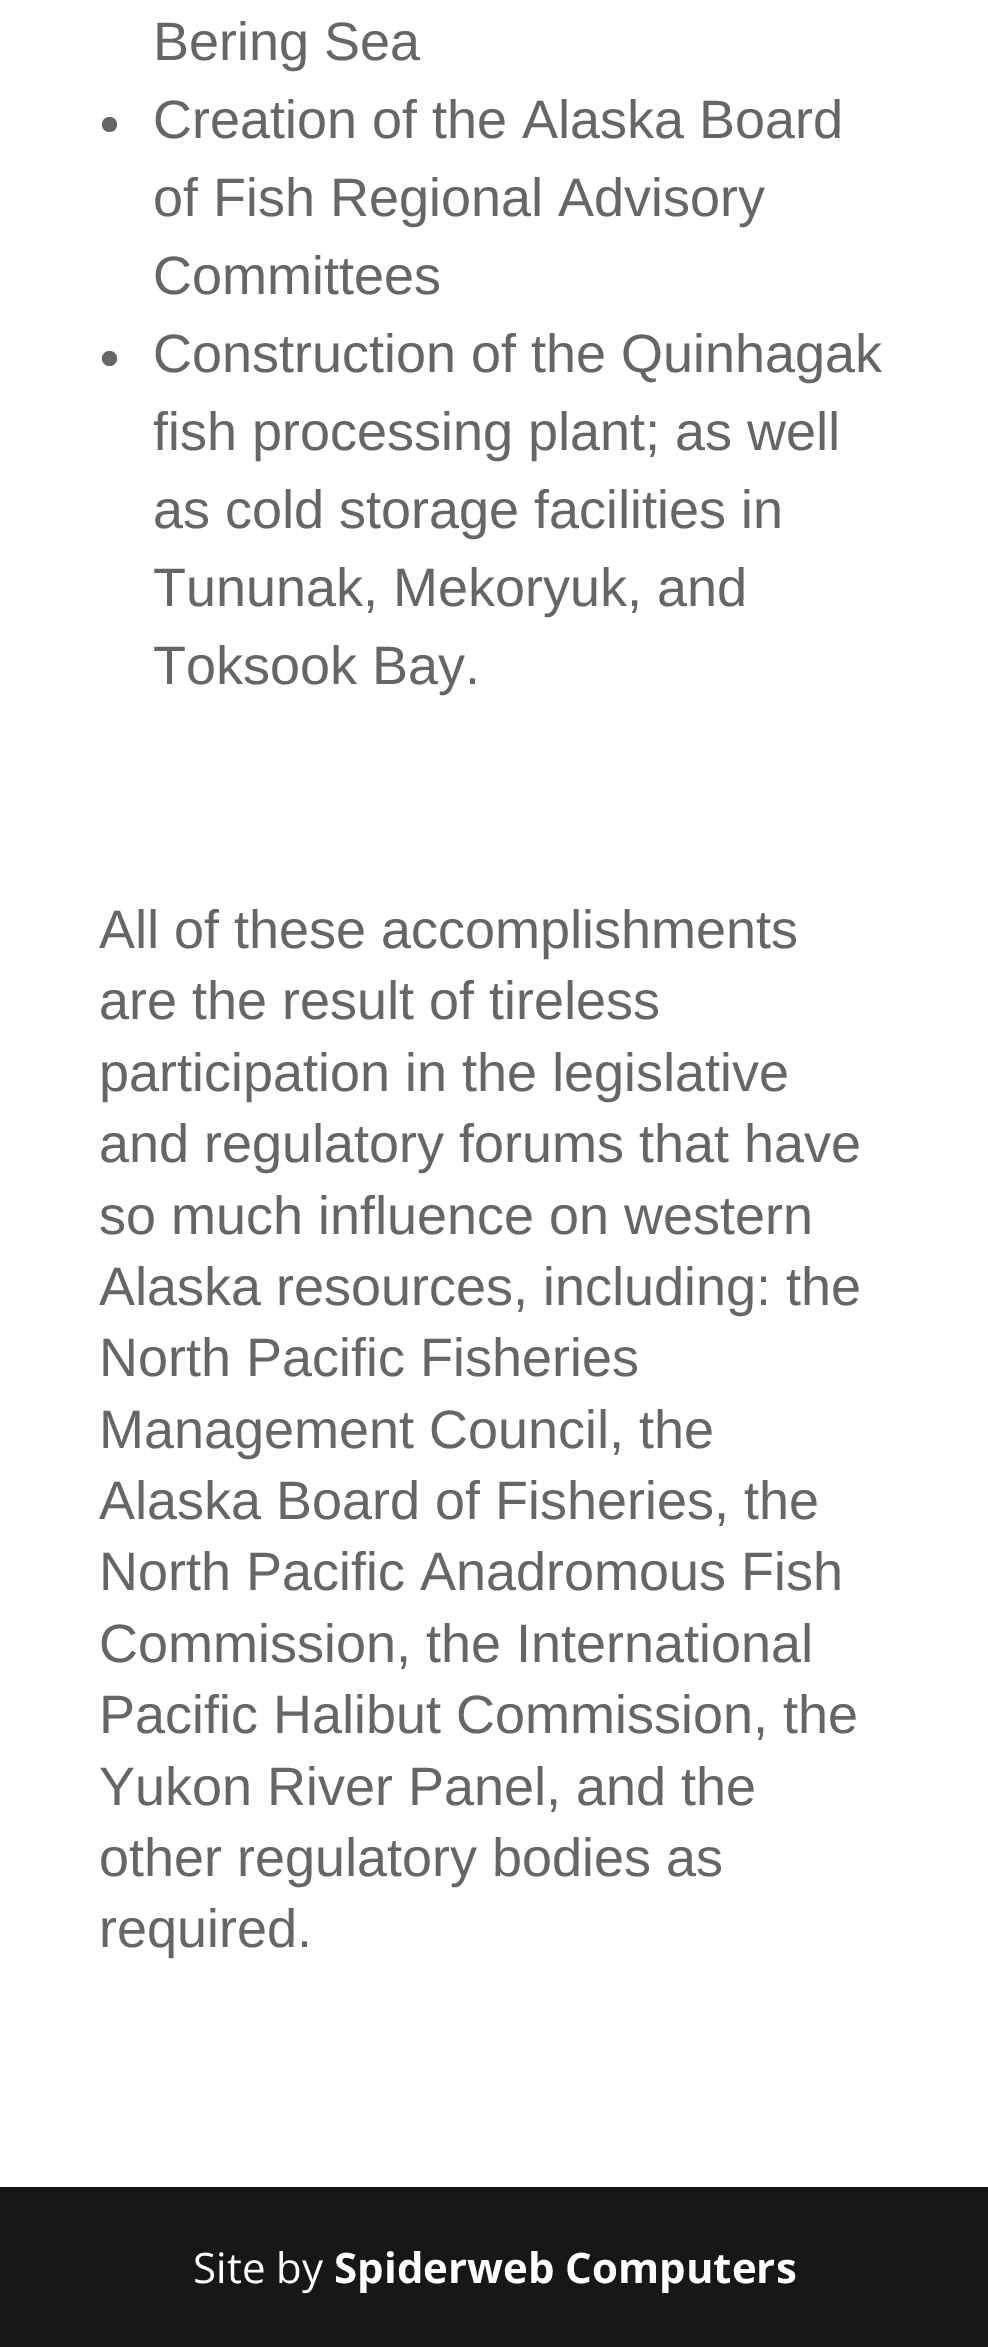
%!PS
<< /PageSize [988 2347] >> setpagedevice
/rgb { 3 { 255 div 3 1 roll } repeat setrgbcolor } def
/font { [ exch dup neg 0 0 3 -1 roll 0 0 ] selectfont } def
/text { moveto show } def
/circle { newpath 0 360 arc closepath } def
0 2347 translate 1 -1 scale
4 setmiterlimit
255 255 255 rgb
0 0 988 2347 rectfill
102 102 102 rgb
109.5 124.5 7.5 circle fill
109.5 358.5 7.5 circle fill
23 23 23 rgb
0 2187 988 160 rectfill
/LiberationSans-Regular 54 font
102 102 102 rgb
(Bering Sea) 153 60 text
(Creation of the Alaska Board) 153 138 text
(of Fish Regional Advisory) 153 216 text
(Committees) 153 294 text
(Construction of the Quinhagak) 153 372 text
(fish processing plant; as well) 153 450 text
(as cold storage facilities in) 153 528 text
(Tununak, Mekoryuk, and) 153 606 text
(Toksook Bay.) 153 684 text
(All of these accomplishments) 99 948 text
(are the result of tireless) 99 1019 text
(participation in the legislative) 99 1091 text
(and regulatory forums that have) 99 1162 text
(so much influence on western) 99 1234 text
(Alaska resources, including: the) 99 1305 text
(North Pacific Fisheries) 99 1376 text
(Management Council, the) 99 1448 text
(Alaska Board of Fisheries, the) 99 1519 text
(North Pacific Anadromous Fish) 99 1590 text
(Commission, the International) 99 1662 text
(Pacific Halibut Commission, the) 99 1733 text
(Yukon River Panel, and the) 99 1805 text
(other regulatory bodies as) 99 1876 text
(required.) 99 1947 text
/OpenSans-Regular 42 font
255 255 255 rgb
(Site by) 193 2283 text
/OpenSans-Bold 42 font
(Spiderweb Computers) 334 2283 text
showpage
